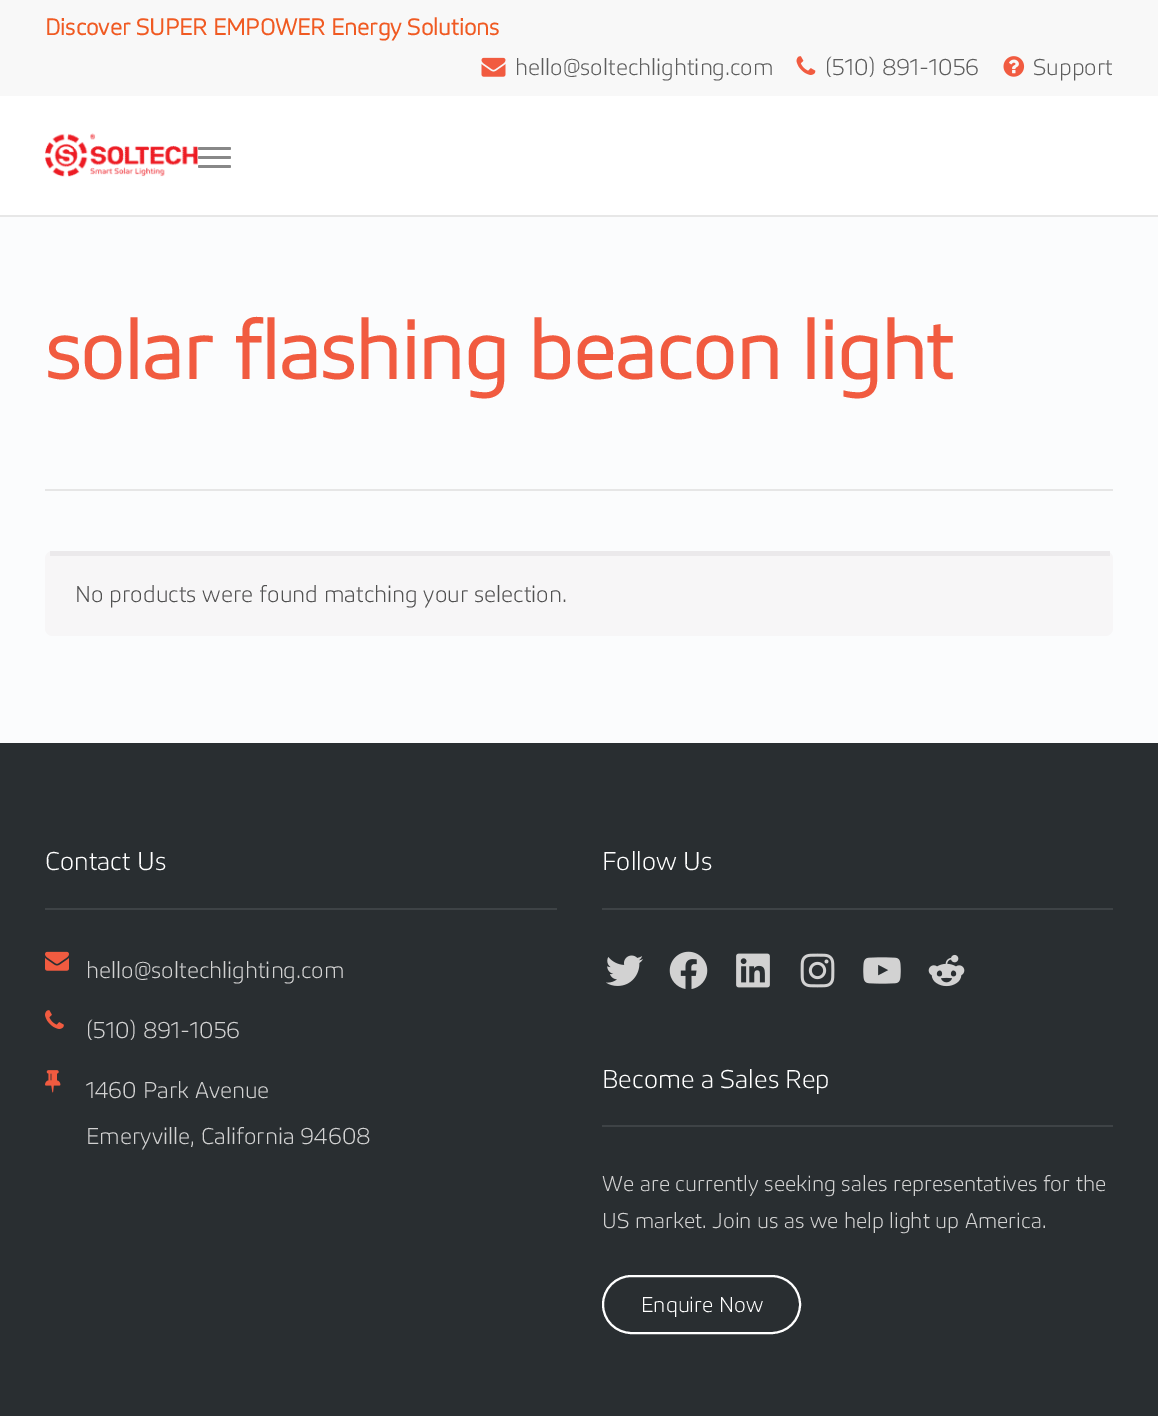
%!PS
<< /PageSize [1158 1416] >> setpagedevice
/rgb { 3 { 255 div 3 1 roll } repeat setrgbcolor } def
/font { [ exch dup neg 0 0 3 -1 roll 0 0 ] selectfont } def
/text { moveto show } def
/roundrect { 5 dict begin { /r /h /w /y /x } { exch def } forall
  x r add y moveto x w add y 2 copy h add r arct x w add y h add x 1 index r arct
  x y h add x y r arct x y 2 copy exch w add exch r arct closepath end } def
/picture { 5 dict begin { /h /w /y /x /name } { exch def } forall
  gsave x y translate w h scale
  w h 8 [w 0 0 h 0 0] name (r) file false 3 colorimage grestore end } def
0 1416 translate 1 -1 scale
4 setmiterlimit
251 252 253 rgb
0 0 1158 1416 rectfill
255 255 255 rgb
0 96 1158 119 rectfill
231 231 231 rgb
0 215 1158 2 rectfill
248 248 248 rgb
0 0 1158 96 rectfill
(img_01.rgb) 481 57 25 20 picture
(img_02.rgb) 796 56 20 19 picture
(img_03.rgb) 1003 56 22 21 picture
(img_04.rgb) 45 133 153 44 picture
136 136 136 rgb
198 147 33 3 1.5 roundrect fill
198 156 33 3 1.5 roundrect fill
198 165 33 3 1.5 roundrect fill
230 230 230 rgb
45 489 1068 2 rectfill
247 246 247 rgb
45 551 1068 85 8 roundrect fill
235 233 235 rgb
50 551 1060 5 rectfill
41 46 49 rgb
0 743 1158 673 rectfill
62 67 70 rgb
45 908 512 2 rectfill
(img_05.rgb) 45 951 24 20 picture
(img_06.rgb) 45 1010 19 19 picture
(img_07.rgb) 45 1070 16 23 picture
602 908 511 2 rectfill
(img_08.rgb) 606 955 37 31 picture
(img_09.rgb) 669 951 39 38 picture
(img_10.rgb) 736 953 34 35 picture
(img_11.rgb) 800 953 35 35 picture
(img_12.rgb) 863 957 38 27 picture
(img_13.rgb) 928 954 37 33 picture
602 1125 511 2 rectfill
255 255 255 rgb
2 setlinewidth
603 1276 197 57 28.5 roundrect stroke
/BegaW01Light-Bold 24 font
240 90 34 rgb
(Discover SUPER EMPOWER Energy Solutions) 45 35 text
/BegaW01Light-Light 24 font
93 93 93 rgb
(hello@soltechlighting.com) 515 75 text
(\(510\) 891-1056) 825 75 text
(Support) 1033 75 text
/BegaW01Light-Bold 84 font
241 91 64 rgb
(solar flashing beacon light) 45 379 text
/BegaW01Light-Light 24 font
81 81 81 rgb
(No products were found matching your selection.) 75 602 text
/BegaW01Light-Light 27 font
255 255 255 rgb
(Contact Us) 45 870 text
/BegaW01Light-Light 24 font
210 210 210 rgb
(hello@soltechlighting.com) 86 978 text
(\(510\) 891-1056) 86 1038 text
(1460 Park Avenue) 86 1098 text
(Emeryville, California 94608) 86 1144 text
/BegaW01Light-Light 27 font
255 255 255 rgb
(Follow Us) 602 870 text
(Become a Sales Rep) 602 1088 text
/BegaW01Light-Light 22.5 font
210 210 210 rgb
(We are currently seeking sales representatives for the) 602 1191 text
(US market. Join us as we help light up America.) 602 1228 text
255 255 255 rgb
(Enquire Now) 641 1312 text
showpage
